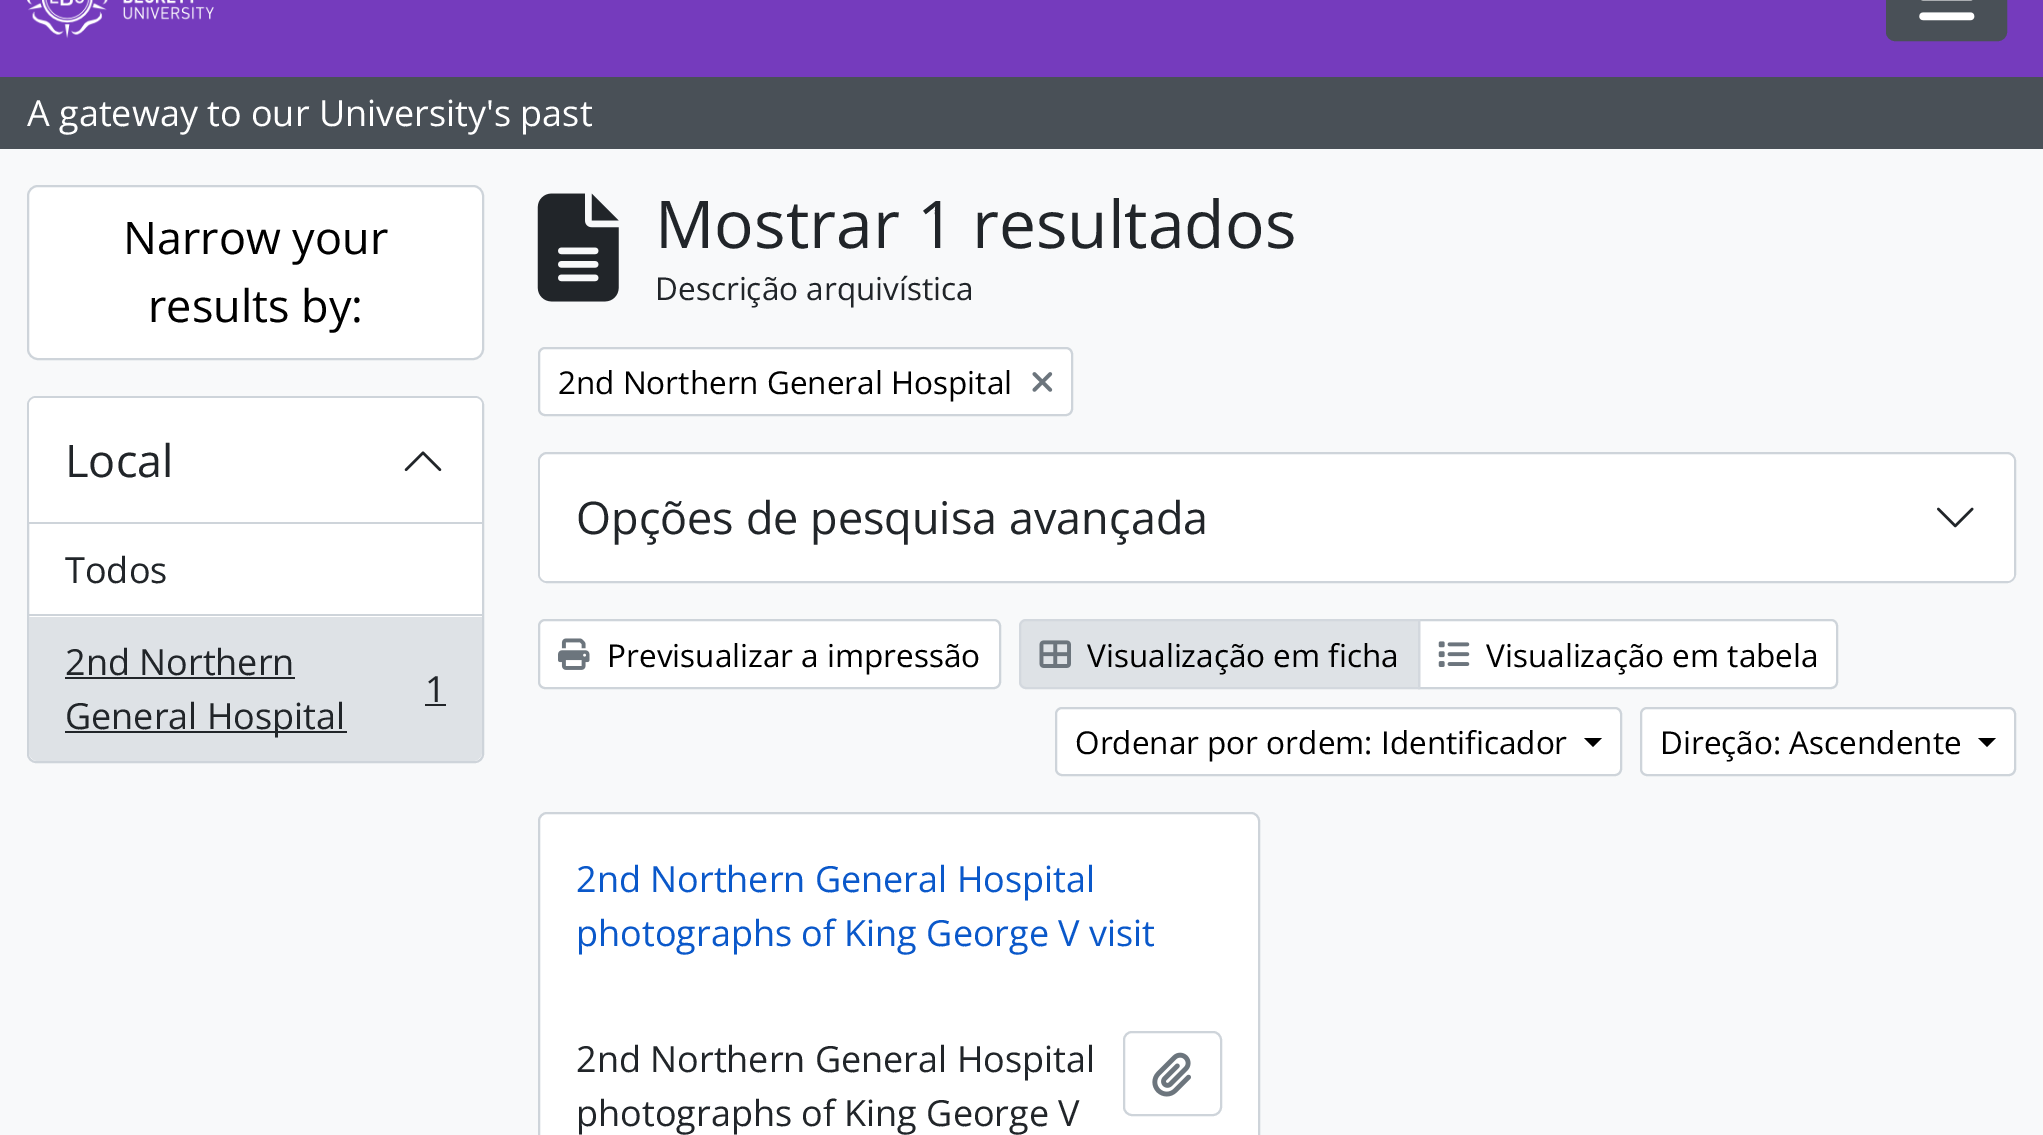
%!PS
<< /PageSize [2043 1135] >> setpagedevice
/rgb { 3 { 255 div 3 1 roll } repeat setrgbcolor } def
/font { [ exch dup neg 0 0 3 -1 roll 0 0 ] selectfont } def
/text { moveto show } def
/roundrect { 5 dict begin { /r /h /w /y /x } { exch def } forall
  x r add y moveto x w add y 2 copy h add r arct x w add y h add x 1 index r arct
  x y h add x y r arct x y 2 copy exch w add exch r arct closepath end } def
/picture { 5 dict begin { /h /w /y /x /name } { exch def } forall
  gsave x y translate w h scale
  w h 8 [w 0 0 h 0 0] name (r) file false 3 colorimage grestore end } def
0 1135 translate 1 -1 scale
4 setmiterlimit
248 249 250 rgb
0 0 2043 1135 rectfill
117 59 189 rgb
0 0 2043 77 rectfill
(img_01.rgb) 27 0 187 39 picture
73 80 87 rgb
1887 -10 119 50 8 roundrect gsave fill grestore
2 setlinewidth
stroke
(img_02.rgb) 1919 0 56 21 picture
0 77 2043 72 rectfill
255 255 255 rgb
28 186 455 173 10 roundrect gsave fill grestore
206 212 218 rgb
stroke
255 255 255 rgb
28 397 455 365 8 roundrect gsave fill grestore
206 212 218 rgb
stroke
255 255 255 rgb
36 398 moveto 439 0 rlineto 4 0 7 3 7 7 rcurveto 0 119 rlineto -453 0 rlineto 0 -119 rlineto 0 -4 3 -7 7 -7 rcurveto closepath fill
206 212 218 rgb
29 522 453 2 rectfill
(img_03.rgb) 404 451 38 21 picture
29 614 453 2 rectfill
222 226 230 rgb
29 617 moveto 453 0 rlineto 0 135 rlineto 0 5 -4 9 -9 9 rcurveto -435 0 rlineto -5 0 -9 -4 -9 -9 rcurveto closepath fill
33 37 41 rgb
65 677 230 2 rectfill
425 704 21 2 rectfill
65 731 282 2 rectfill
(img_04.rgb) 537 193 82 109 picture
255 255 255 rgb
539 348 533 67 6 roundrect gsave fill grestore
206 212 218 rgb
stroke
(img_05.rgb) 1032 372 21 20 picture
255 255 255 rgb
539 453 1476 129 8 roundrect gsave fill grestore
206 212 218 rgb
stroke
255 255 255 rgb
540 455 1474 126 7 roundrect fill
(img_06.rgb) 1937 507 37 21 picture
539 620 461 68 6 roundrect gsave fill grestore
206 212 218 rgb
stroke
(img_07.rgb) 558 638 32 32 picture
255 255 255 rgb
1419 620 moveto 412 0 rlineto 3.5 0 6 2.5 6 6 rcurveto 0 56 rlineto 0 3.5 -2.5 6 -6 6 rcurveto -412 0 rlineto closepath gsave fill grestore
206 212 218 rgb
stroke
222 226 230 rgb
1026 620 moveto 393 0 rlineto 0 68 rlineto -393 0 rlineto -3.5 0 -6 -2.5 -6 -6 rcurveto 0 -56 rlineto 0 -3.5 2.5 -6 6 -6 rcurveto closepath gsave fill grestore
211 216 222 rgb
stroke
(img_08.rgb) 1039 640 32 28 picture
(img_09.rgb) 1438 641 32 26 picture
255 255 255 rgb
1056 708 565 67 6 roundrect gsave fill grestore
206 212 218 rgb
stroke
0 0 0 rgb
1584 738 moveto 18 0 rlineto -9 9 rlineto closepath fill
255 255 255 rgb
1641 708 374 67 6 roundrect gsave fill grestore
206 212 218 rgb
stroke
0 0 0 rgb
1978 738 moveto 18 0 rlineto -9 9 rlineto closepath fill
255 255 255 rgb
539 813 720 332 8 roundrect gsave fill grestore
206 212 218 rgb
stroke
1124 1032 97 83 8 roundrect stroke
(img_10.rgb) 1152 1052 39 45 picture
/OpenSans-Regular 36 font
255 255 255 rgb
(A gateway to our University's past) 27 126 text
/OpenSans-Regular 45 font
0 0 0 rgb
(Narrow your) 123 254 text
(results by:) 148 322 text
33 37 41 rgb
(Local) 65 477 text
/OpenSans-Regular 36 font
(Todos) 65 583 text
(2nd Northern) 65 675 text
(1) 425 702 text
(General Hospital) 65 729 text
/OpenSans-Regular 66 font
(Mostrar 1 resultados) 655 248 text
/OpenSans-Regular 31.5 font
(Descrição arquivística) 655 300 text
0 0 0 rgb
(2nd Northern General Hospital) 558 394 text
/OpenSans-Regular 45 font
33 37 41 rgb
(Opções de pesquisa avançada) 576 534 text
/OpenSans-Regular 31.5 font
0 0 0 rgb
(Previsualizar a impressão) 607 667 text
(Visualização em ficha) 1087 667 text
(Visualização em tabela) 1486 667 text
(Ordenar por ordem: Identificador) 1075 754 text
(Direção: Ascendente) 1660 754 text
/OpenSans-Regular 36 font
10 88 202 rgb
(2nd Northern General Hospital) 576 892 text
(photographs of King George V visit) 576 946 text
33 37 41 rgb
(2nd Northern General Hospital) 576 1072 text
(photographs of King George V) 576 1126 text
showpage
